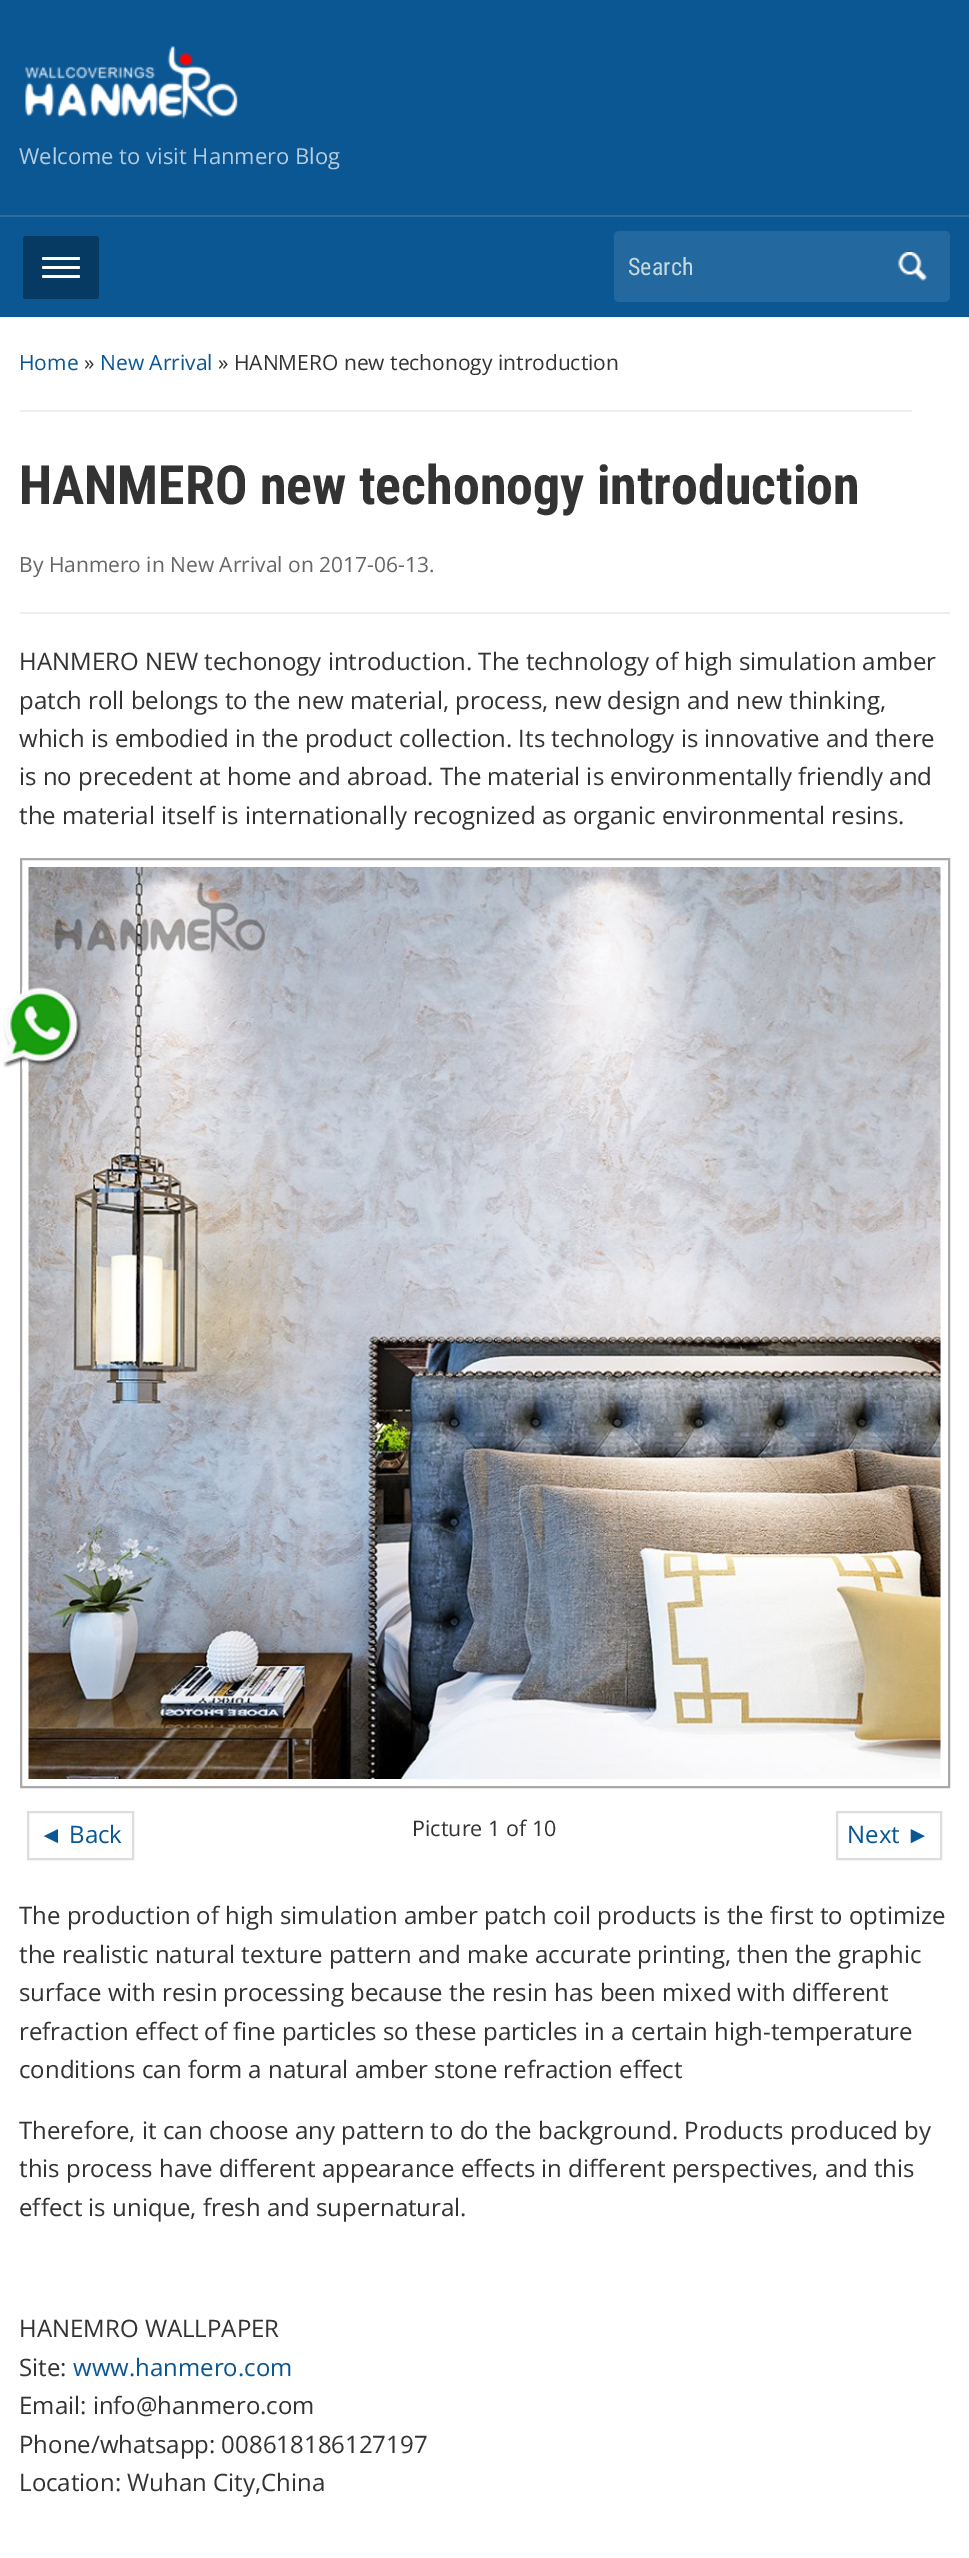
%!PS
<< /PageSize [969 2558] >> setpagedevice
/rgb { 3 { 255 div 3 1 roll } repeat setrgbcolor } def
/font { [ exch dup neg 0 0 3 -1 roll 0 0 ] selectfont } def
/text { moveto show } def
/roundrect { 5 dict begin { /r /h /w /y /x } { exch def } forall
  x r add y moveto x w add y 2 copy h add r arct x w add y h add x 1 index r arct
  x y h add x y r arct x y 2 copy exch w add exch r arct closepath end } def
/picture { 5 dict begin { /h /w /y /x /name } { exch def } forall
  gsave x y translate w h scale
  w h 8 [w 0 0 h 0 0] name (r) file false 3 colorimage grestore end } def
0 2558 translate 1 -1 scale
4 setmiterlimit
255 255 255 rgb
0 0 969 2558 rectfill
10 87 148 rgb
0 0 969 317 rectfill
(img_01.rgb) 25 46 213 73 picture
42 109 162 rgb
0 215 969 2 rectfill
7 58 99 rgb
23 236 76 63 3 roundrect fill
255 255 255 rgb
42 257 38 3 1.5 roundrect fill
42 266 38 3 1.5 roundrect fill
42 275 38 3 1.5 roundrect fill
35 104 159 rgb
614 231 336 71 5 roundrect fill
(img_02.rgb) 898 252 29 29 picture
238 238 238 rgb
20 410 892 2 rectfill
20 612 930 2 rectfill
169 169 169 rgb
2 setlinewidth
21 859 928 928 rectstroke
(img_03.rgb) 28 867 913 912 picture
221 221 221 rgb
28 1812 105 47 rectstroke
837 1812 104 47 rectstroke
(img_04.rgb) 3 987 79 81 picture
/OpenSans-Regular 22 font
182 205 223 rgb
(Welcome to visit Hanmero Blog) 19 164 text
/RobotoCondensed-Regular 24 font
198 217 219 rgb
(Search) 628 275 text
/OpenSans-Regular 21 font
10 87 148 rgb
(Home) 19 370 text
51 51 51 rgb
(») 84 370 text
10 87 148 rgb
(New Arrival) 100 370 text
51 51 51 rgb
(» HANMERO new techonogy introduction) 218 370 text
/RobotoCondensed-Bold 54 font
(HANMERO new techonogy introduction) 19 504 text
/OpenSans-Regular 21 font
102 102 102 rgb
(By Hanmero in New Arrival on 2017-06-13.) 19 572 text
/OpenSans-Regular 24 font
51 51 51 rgb
(HANMERO NEW techonogy introduction. The technology of high simulation amber) 19 670 text
(patch roll belongs to the new material, process, new design and new thinking,) 19 709 text
(which is embodied in the product collection. Its technology is innovative and there) 19 747 text
(is no precedent at home and abroad. The material is environmentally friendly and) 19 785 text
(the material itself is internationally recognized as organic environmental resins.) 19 824 text
/LiberationSans-Regular 24 font
10 87 148 rgb
(◄) 39 1843 text
/OpenSans-Regular 24 font
(Back) 69 1843 text
/OpenSans-Regular 21.5 font
51 51 51 rgb
(Picture 1 of 10) 412 1836 text
/OpenSans-Regular 24 font
10 87 148 rgb
(Next) 847 1843 text
/LiberationSans-Regular 24 font
(►) 906 1843 text
/OpenSans-Regular 24 font
51 51 51 rgb
(The production of high simulation amber patch coil products is the first to optimize) 19 1924 text
(the realistic natural texture pattern and make accurate printing, then the graphic) 19 1963 text
(surface with resin processing because the resin has been mixed with different) 19 2001 text
(refraction effect of fine particles so these particles in a certain high-temperature) 19 2040 text
(conditions can form a natural amber stone refraction effect) 19 2078 text
(Therefore, it can choose any pattern to do the background. Products produced by) 19 2139 text
(this process have different appearance effects in different perspectives, and this) 19 2177 text
(effect is unique, fresh and supernatural.) 19 2216 text
(HANEMRO WALLPAPER) 19 2337 text
(Site:) 19 2376 text
10 87 148 rgb
(www.hanmero.com) 73 2376 text
51 51 51 rgb
(Email: info@hanmero.com) 19 2414 text
(Phone/whatsapp: 008618186127197) 19 2453 text
(Location: Wuhan City,China) 19 2491 text
showpage
